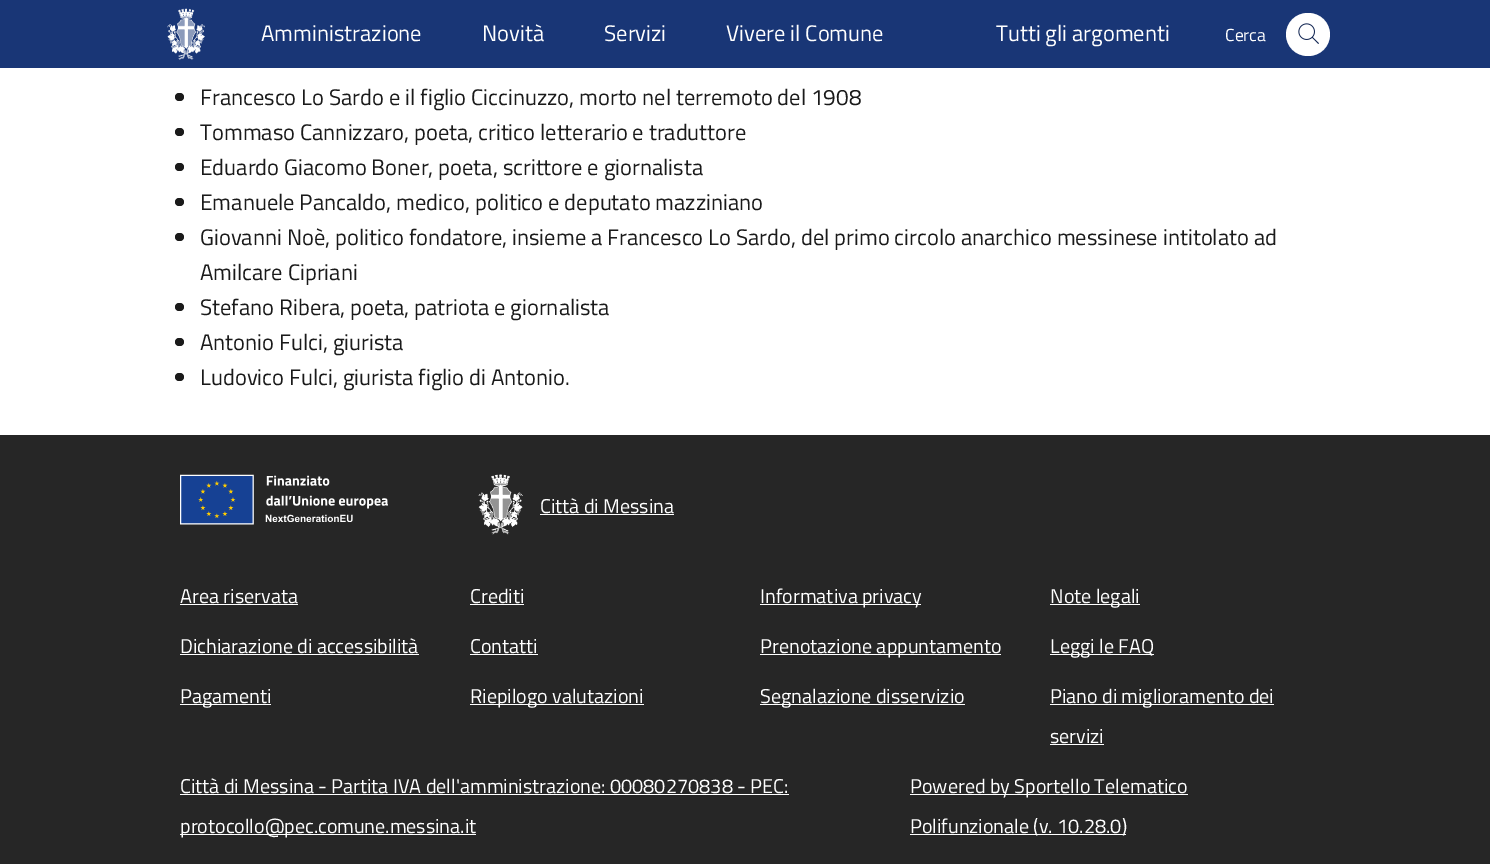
%!PS
<< /PageSize [1490 864] >> setpagedevice
/rgb { 3 { 255 div 3 1 roll } repeat setrgbcolor } def
/font { [ exch dup neg 0 0 3 -1 roll 0 0 ] selectfont } def
/text { moveto show } def
/roundrect { 5 dict begin { /r /h /w /y /x } { exch def } forall
  x r add y moveto x w add y 2 copy h add r arct x w add y h add x 1 index r arct
  x y h add x y r arct x y 2 copy exch w add exch r arct closepath end } def
/picture { 5 dict begin { /h /w /y /x /name } { exch def } forall
  gsave x y translate w h scale
  w h 8 [w 0 0 h 0 0] name (r) file false 3 colorimage grestore end } def
0 864 translate 1 -1 scale
4 setmiterlimit
255 255 255 rgb
0 0 1490 864 rectfill
25 54 118 rgb
0 0 1490 68 rectfill
(img_01.rgb) 167 8 38 52 picture
255 255 255 rgb
1286 13 44 43 21.5 roundrect fill
(img_02.rgb) 1298 23 21 21 picture
26 26 26 rgb
175 93 9 8 4 roundrect fill
175 128 9 8 4 roundrect fill
175 163 9 8 4 roundrect fill
175 198 9 8 4 roundrect fill
175 233 9 8 4 roundrect fill
175 303 9 8 4 roundrect fill
175 338 9 8 4 roundrect fill
175 373 9 8 4 roundrect fill
38 38 38 rgb
0 435 1490 429 rectfill
(img_03.rgb) 180 474 208 51 picture
(img_04.rgb) 478 474 45 61 picture
255 255 255 rgb
540 514 134 1 rectfill
180 604 118 1 rectfill
470 604 54 1 rectfill
760 604 161 1 rectfill
1050 604 90 1 rectfill
180 654 239 1 rectfill
470 654 68 1 rectfill
760 654 241 1 rectfill
1050 654 104 1 rectfill
180 704 91 1 rectfill
470 704 174 1 rectfill
760 704 205 1 rectfill
1050 704 224 1 rectfill
1050 744 54 1 rectfill
180 794 609 1 rectfill
180 834 296 1 rectfill
910 794 278 1 rectfill
910 834 216 1 rectfill
/TitilliumWeb-Regular 22.5 font
(Amministrazione) 261 41 text
(Novità) 482 41 text
(Servizi) 604 41 text
(Vivere il Comune) 726 41 text
(Tutti gli argomenti) 996 41 text
/TitilliumWeb-Regular 17.5 font
(Cerca) 1225 41 text
/TitilliumWeb-Regular 22.5 font
26 26 26 rgb
(Francesco Lo Sardo e il figlio Ciccinuzzo, morto nel terremoto del 1908) 200 105 text
(Tommaso Cannizzaro, poeta, critico letterario e traduttore) 200 140 text
(Eduardo Giacomo Boner, poeta, scrittore e giornalista) 200 175 text
(Emanuele Pancaldo, medico, politico e deputato mazziniano) 200 210 text
(Giovanni Noè, politico fondatore, insieme a Francesco Lo Sardo, del primo circolo anarchico messinese intitolato ad) 200 245 text
(Amilcare Cipriani) 200 280 text
(Stefano Ribera, poeta, patriota e giornalista) 200 315 text
(Antonio Fulci, giurista) 200 350 text
(Ludovico Fulci, giurista figlio di Antonio.) 200 385 text
/TitilliumWeb-Regular 20 font
255 255 255 rgb
(Città di Messina) 540 513 text
(Area riservata) 180 603 text
(Crediti) 470 603 text
(Informativa privacy) 760 603 text
(Note legali) 1050 603 text
(Dichiarazione di accessibilità) 180 653 text
(Contatti) 470 653 text
(Prenotazione appuntamento) 760 653 text
(Leggi le FAQ) 1050 653 text
(Pagamenti) 180 703 text
(Riepilogo valutazioni) 470 703 text
(Segnalazione disservizio) 760 703 text
(Piano di miglioramento dei) 1050 703 text
(servizi) 1050 743 text
(Città di Messina - Partita IVA dell'amministrazione: 00080270838 - PEC:) 180 793 text
(protocollo@pec.comune.messina.it) 180 833 text
(Powered by Sportello Telematico) 910 793 text
(Polifunzionale \(v. 10.28.0\)) 910 833 text
showpage
